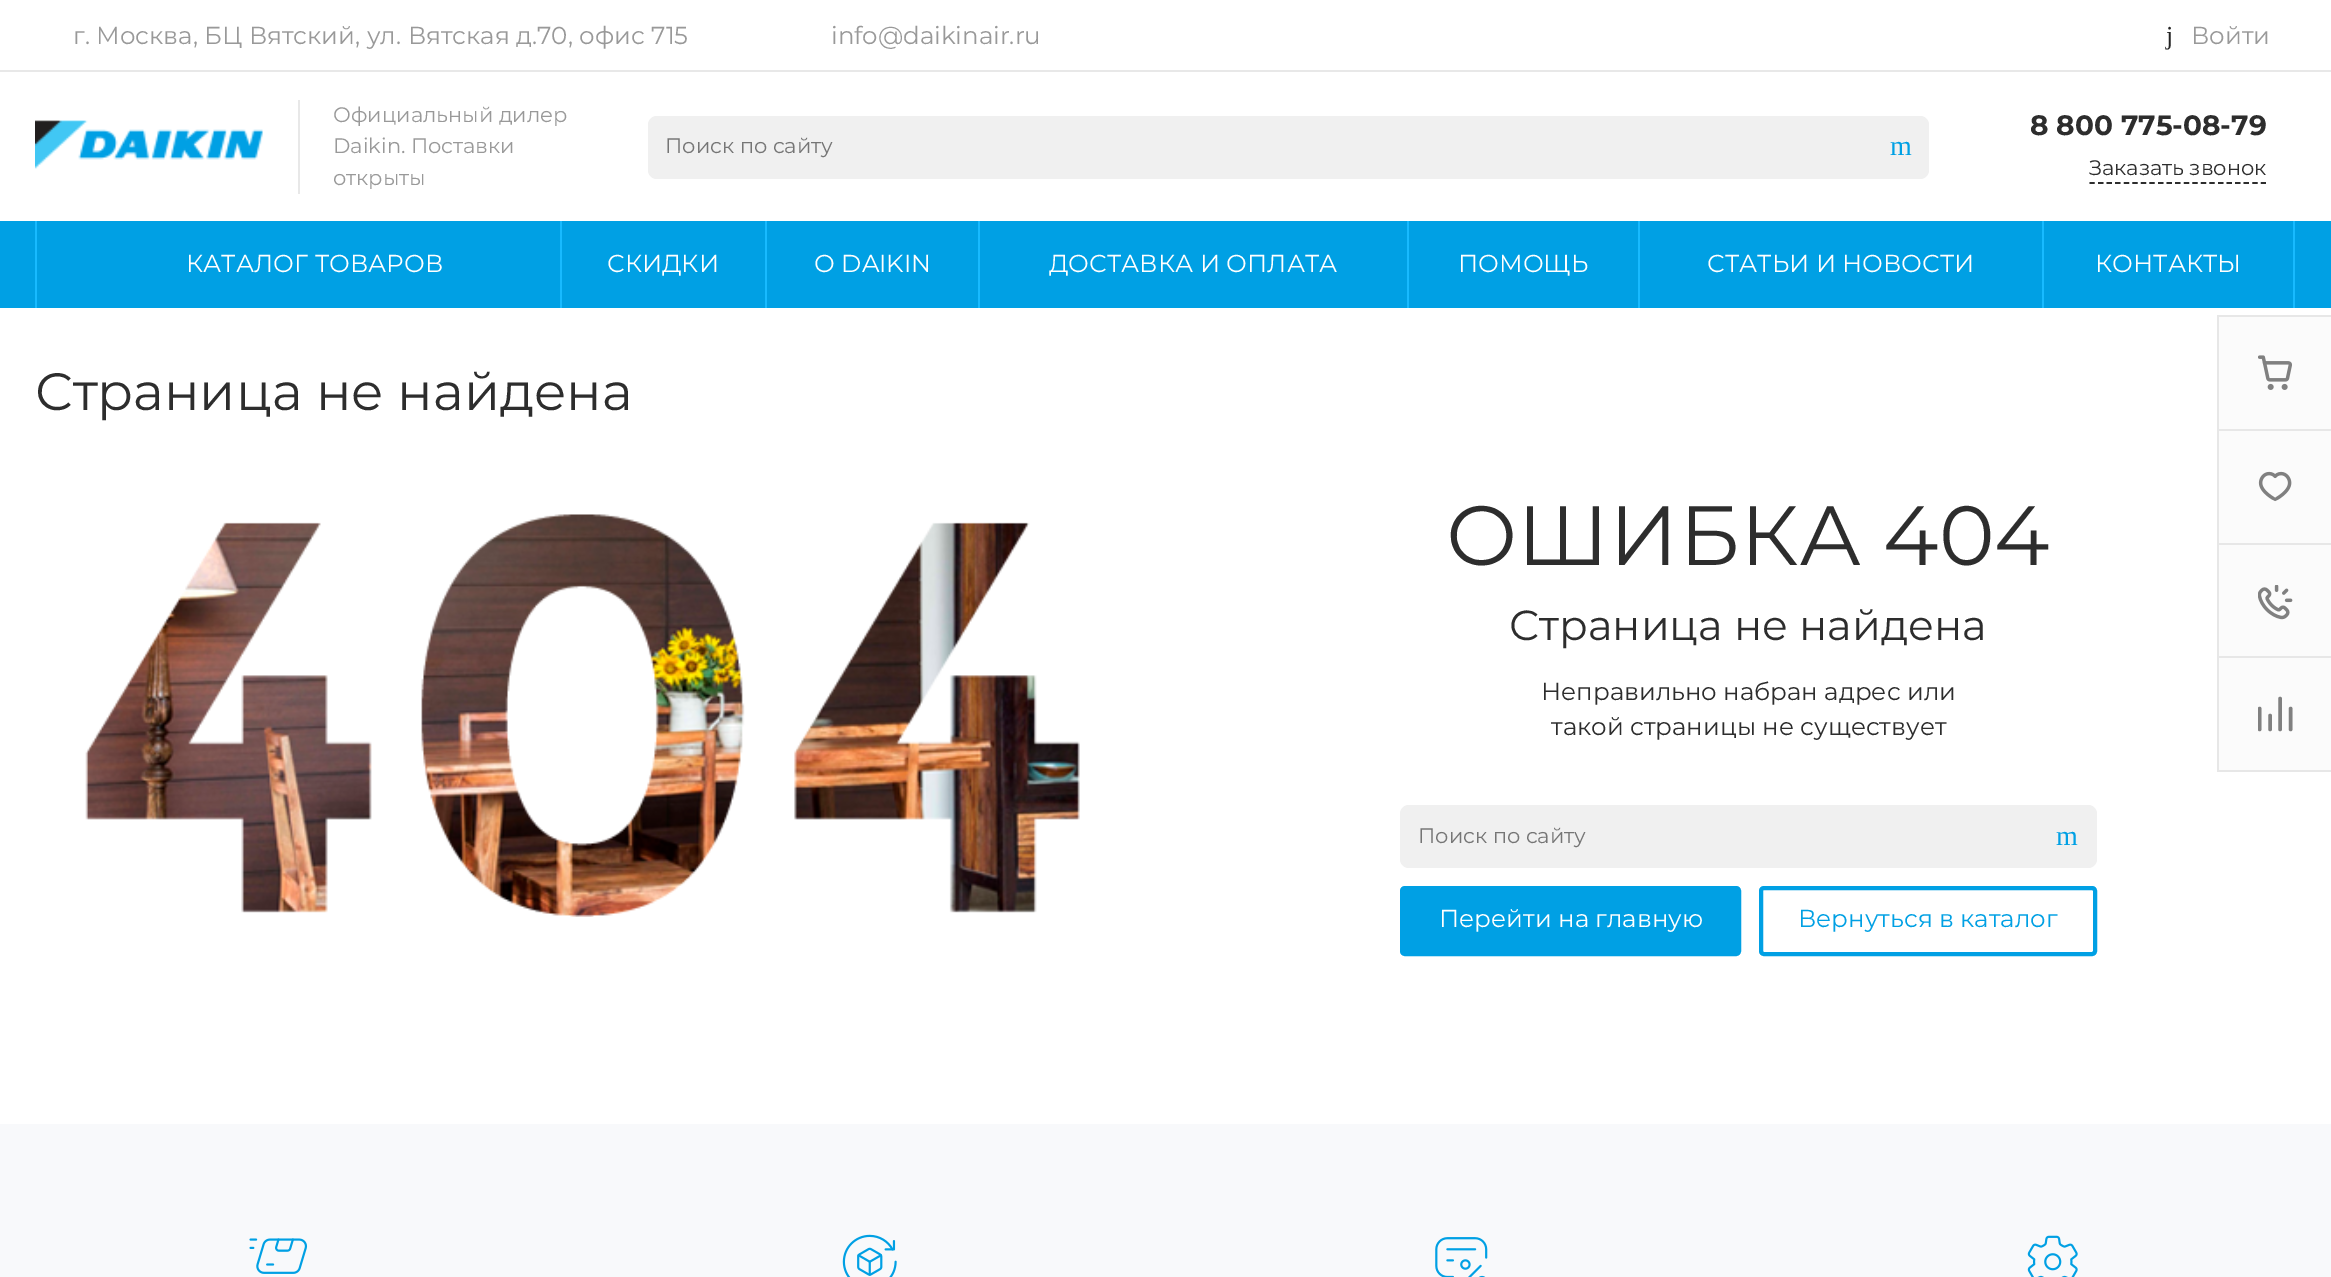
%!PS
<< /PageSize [2331 1277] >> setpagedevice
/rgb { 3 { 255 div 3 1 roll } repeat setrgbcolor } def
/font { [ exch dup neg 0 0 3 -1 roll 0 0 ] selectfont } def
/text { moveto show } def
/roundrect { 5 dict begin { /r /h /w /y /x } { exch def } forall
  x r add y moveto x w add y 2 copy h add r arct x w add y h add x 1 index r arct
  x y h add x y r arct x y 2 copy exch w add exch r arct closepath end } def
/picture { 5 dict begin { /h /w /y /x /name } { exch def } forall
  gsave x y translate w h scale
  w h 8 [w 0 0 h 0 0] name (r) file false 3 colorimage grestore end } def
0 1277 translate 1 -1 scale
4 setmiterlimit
255 255 255 rgb
0 0 2331 1277 rectfill
232 232 232 rgb
0 70 2331 2 rectfill
(img_01.rgb) 35 120 228 49 picture
298 100 2 94 rectfill
240 240 240 rgb
648 116 1281 63 9 roundrect fill
45 45 45 rgb
1.8 setlinewidth
[5.25 3.32] 0 setdash
2089.5 183 moveto 176.5 0 rlineto stroke
0 160 228 rgb
0 221 2331 87 rectfill
24 186 255 rgb
560 221 2 87 rectfill
35 221 2 87 rectfill
765 221 2 87 rectfill
978 221 2 87 rectfill
1407 221 2 87 rectfill
1638 221 2 87 rectfill
2042 221 2 87 rectfill
2293 221 2 87 rectfill
251 251 251 rgb
2219 317 112 453 rectfill
231 231 231 rgb
2217 315 114 2 rectfill
2217 770 114 2 rectfill
2217 315 2 457 rectfill
2219 429 112 2 rectfill
(img_02.rgb) 2258 355 34 35 picture
2219 543 112 2 rectfill
(img_03.rgb) 2258 471 34 31 picture
2219 656 112 2 rectfill
(img_04.rgb) 2258 585 35 35 picture
gsave
2258 697 35 35 rectclip
128 128 128 rgb
3.5 setlinewidth
1 setlinecap
1 setlinejoin
[] 0 setdash
2259.5 708.5 moveto 0 21 rlineto stroke
grestore
128 128 128 rgb
3.5 setlinewidth
1 setlinecap
1 setlinejoin
[] 0 setdash
2270 715.5 moveto 0 14 rlineto 2290.5 708.5 moveto 0 21 rlineto 2280 698.5 moveto 0 31 rlineto stroke
(img_05.rgb) 85 514 995 403 picture
240 240 240 rgb
1400 805 697 63 9 roundrect fill
0 160 228 rgb
1402 888 337 66 3 roundrect gsave fill grestore
4 setlinewidth
0 setlinecap
0 setlinejoin
stroke
1761 888 334 66 3 roundrect stroke
248 249 251 rgb
0 1124 2331 153 rectfill
(img_06.rgb) 249 1238 59 36 picture
(img_07.rgb) 842 1234 55 43 picture
(img_08.rgb) 1435 1237 53 40 picture
(img_09.rgb) 2027 1235 51 42 picture
/Montserrat-Regular 24.5 font
153 153 153 rgb
(г. Москва, БЦ Вятский, ул. Вятская д.70, офис 715) 73 44 text
(info@daikinair.ru) 831 44 text
/LiberationSerif-Regular 26 font
34 34 34 rgb
(j) 2166 44 text
/Montserrat-Regular 24.5 font
153 153 153 rgb
(Войти) 2191 44 text
/Montserrat-Regular 21 font
(Официальный дилер) 333 122 text
(Daikin. Поставки) 333 153 text
(открыты) 333 185 text
117 117 117 rgb
(Поиск по сайту) 665 153 text
/LiberationSerif-Regular 28 font
0 160 228 rgb
(m) 1890 155 text
/Montserrat-Bold 28 font
45 45 45 rgb
(8 800 775-08-79) 2030 135 text
/Montserrat-Regular 21 font
(Заказать звонок) 2089 175 text
/Montserrat-Regular 24.5 font
255 255 255 rgb
(КАТАЛОГ ТОВАРОВ) 186 272 text
(СКИДКИ) 607 272 text
(О DAIKIN) 814 272 text
(ДОСТАВКА И ОПЛАТА) 1049 272 text
(ПОМОЩЬ) 1458 272 text
(СТАТЬИ И НОВОСТИ) 1707 272 text
(КОНТАКТЫ) 2095 272 text
/Montserrat-Regular 52.5 font
45 45 45 rgb
(Страница не найдена) 35 410 text
/Montserrat-Regular 84 font
(ОШИБКА 404) 1446 565 text
/Montserrat-Regular 42 font
(Страница не найдена) 1509 640 text
/Montserrat-Regular 24.5 font
(Неправильно набран адрес или) 1541 700 text
(такой страницы не существует) 1551 735 text
/Montserrat-Regular 21 font
117 117 117 rgb
(Поиск по сайту) 1418 843 text
/LiberationSerif-Regular 28 font
0 160 228 rgb
(m) 2056 845 text
/Montserrat-Regular 24.5 font
255 255 255 rgb
(Перейти на главную) 1439 927 text
0 160 228 rgb
(Вернуться в каталог) 1798 927 text
showpage
